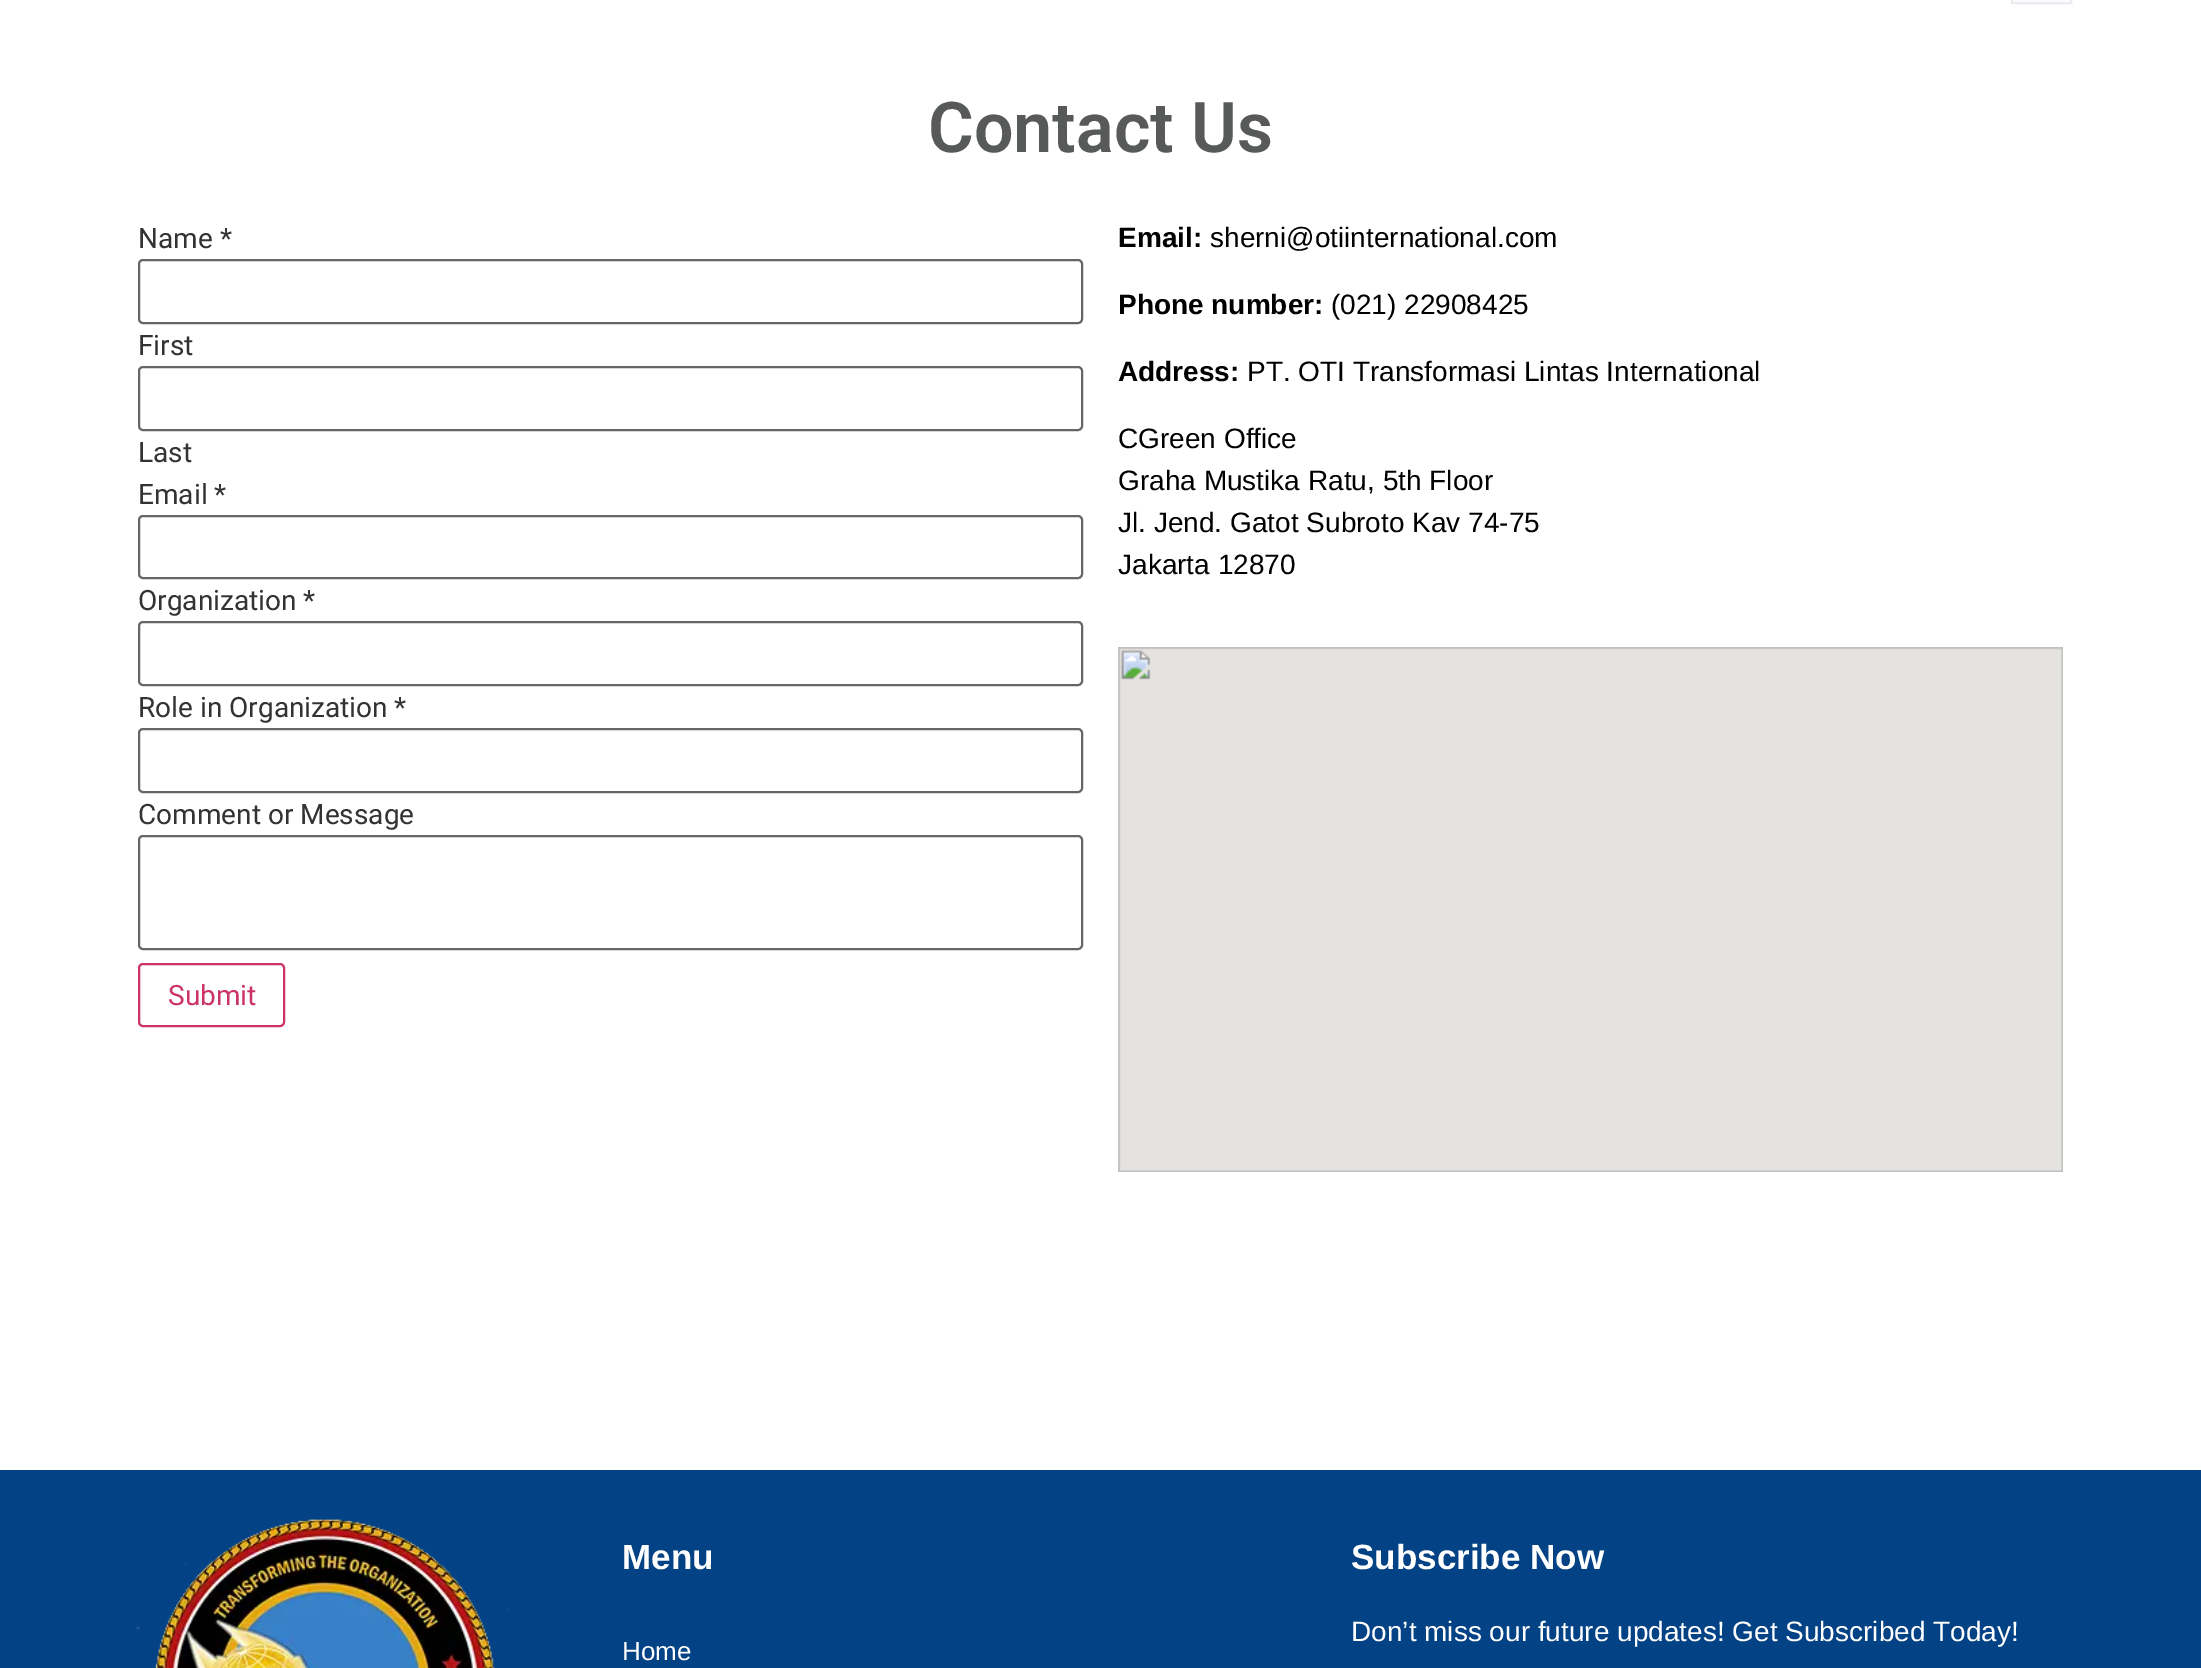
%!PS
<< /PageSize [2201 1668] >> setpagedevice
/rgb { 3 { 255 div 3 1 roll } repeat setrgbcolor } def
/font { [ exch dup neg 0 0 3 -1 roll 0 0 ] selectfont } def
/text { moveto show } def
/roundrect { 5 dict begin { /r /h /w /y /x } { exch def } forall
  x r add y moveto x w add y 2 copy h add r arct x w add y h add x 1 index r arct
  x y h add x y r arct x y 2 copy exch w add exch r arct closepath end } def
/picture { 5 dict begin { /h /w /y /x /name } { exch def } forall
  gsave x y translate w h scale
  w h 8 [w 0 0 h 0 0] name (r) file false 3 colorimage grestore end } def
0 1668 translate 1 -1 scale
4 setmiterlimit
255 255 255 rgb
0 0 2201 1668 rectfill
234 235 241 rgb
2 setlinewidth
2012 -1 59 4 rectstroke
102 102 102 rgb
139 260 943 63 4 roundrect stroke
139 367 943 63 4 roundrect stroke
139 516 943 62 4 roundrect stroke
139 622 943 63 4 roundrect stroke
139 729 943 63 4 roundrect stroke
139 836 943 113 4 roundrect stroke
204 51 102 rgb
139 964 145 62 4 roundrect stroke
(img_01.rgb) 1118 647 945 525 picture
3 66 132 rgb
0 1470 2201 198 rectfill
(img_02.rgb) 136 1519 374 149 picture
/Roboto-SemiBold 70 font
88 89 89 rgb
(Contact Us) 928 152 text
/Roboto-Regular 28 font
51 51 51 rgb
(Name *) 138 248 text
(First) 138 355 text
(Last) 138 462 text
(Email *) 138 504 text
(Organization *) 138 610 text
(Role in Organization *) 138 717 text
(Comment or Message) 138 824 text
204 51 102 rgb
(Submit) 168 1005 text
/LiberationSans-Bold 28 font
0 0 0 rgb
(Email:) 1118 247 text
/LiberationSans-Regular 28 font
(sherni@otiinternational.com) 1210 247 text
/LiberationSans-Bold 28 font
(Phone number:) 1118 314 text
/LiberationSans-Regular 28 font
(\(021\) 22908425) 1331 314 text
/LiberationSans-Bold 28 font
(Address:) 1118 381 text
/LiberationSans-Regular 28 font
(PT. OTI Transformasi Lintas International) 1247 381 text
(CGreen Office) 1118 448 text
(Graha Mustika Ratu, 5th Floor) 1118 490 text
(Jl. Jend. Gatot Subroto Kav 74-75) 1118 532 text
(Jakarta 12870) 1118 574 text
/LiberationSans-Bold 35 font
255 255 255 rgb
(Menu) 622 1569 text
/LiberationSans-Regular 26 font
(Home) 622 1660 text
/LiberationSans-Bold 35 font
(Subscribe Now) 1351 1569 text
/LiberationSans-Regular 28 font
(Don’t miss our future updates! Get Subscribed Today!) 1351 1641 text
showpage
